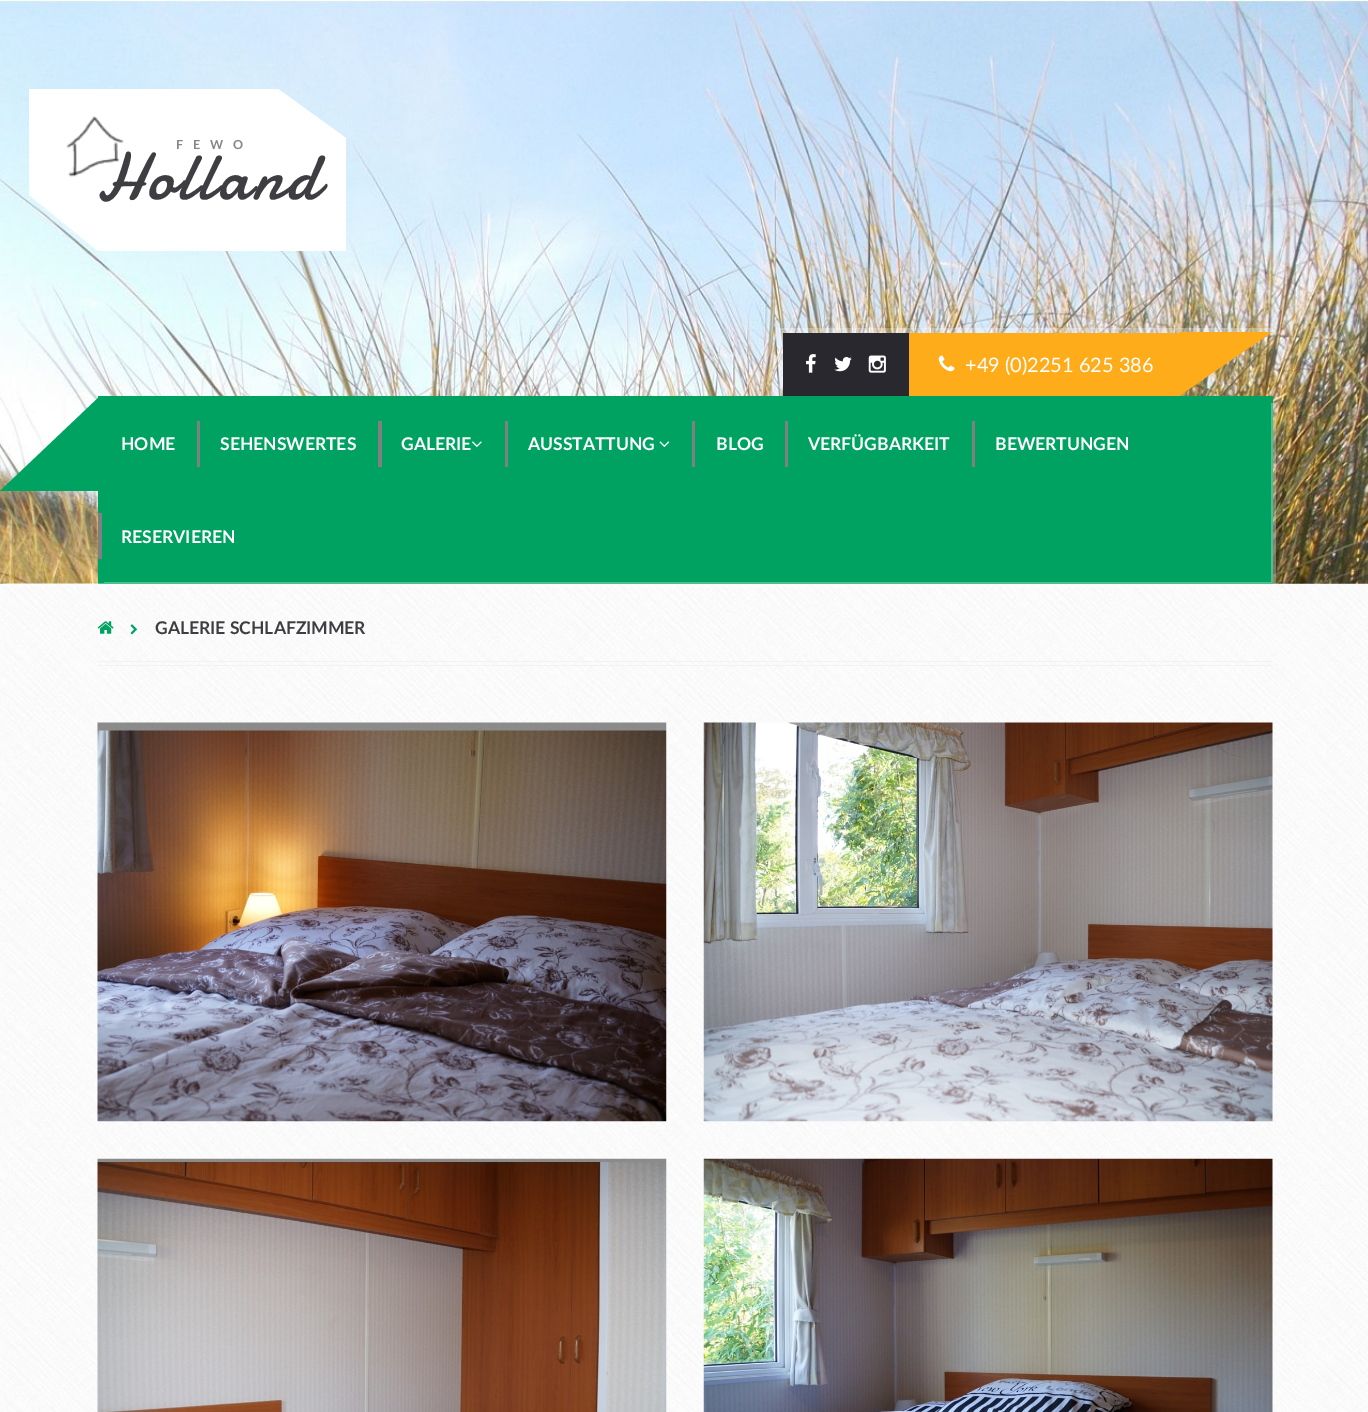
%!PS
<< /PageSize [1368 1412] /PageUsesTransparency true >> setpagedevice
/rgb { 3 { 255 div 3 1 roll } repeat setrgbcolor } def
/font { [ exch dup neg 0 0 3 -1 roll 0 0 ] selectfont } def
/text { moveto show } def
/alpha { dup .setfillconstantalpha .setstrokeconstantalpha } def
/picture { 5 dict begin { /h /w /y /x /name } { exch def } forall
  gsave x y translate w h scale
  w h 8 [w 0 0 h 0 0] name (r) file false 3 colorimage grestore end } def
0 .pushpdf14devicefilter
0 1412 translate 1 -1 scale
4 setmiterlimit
255 255 255 rgb
0 0 1368 1412 rectfill
(img_01.rgb) 0 583 1368 829 picture
(img_02.rgb) 0 0 1368 584 picture
29 89 249 49 rectfill
278 138 moveto 0 -49 rlineto 68 49 rlineto closepath fill
29 138 69 57 rectfill
98 138 248 113 rectfill
98 195 moveto 0 56 rlineto -69 -56 rlineto closepath fill
0.3 alpha
778 328 5 68 rectfill
783 328 396 5 rectfill
1 alpha
40 40 46 rgb
783 333 126 63 rectfill
(img_04.rgb) 806 354 10 19 picture
(img_05.rgb) 834 357 18 15 picture
(img_06.rgb) 868 355 18 18 picture
255 172 27 rgb
909 333 270 63 rectfill
0.3 alpha
255 255 255 rgb
1179 328 94 5 rectfill
1 alpha
(img_07.rgb) 938 355 17 17 picture
255 172 27 rgb
1179 332 moveto 93 0 rlineto -93 64 rlineto closepath fill
0 162 97 rgb
98 396 1175 188 rectfill
0.3 alpha
255 255 255 rgb
104 582 moveto 0 6 rlineto 1172 0 rlineto 0 -185 rlineto -5 0 rlineto 0 179 rlineto closepath fill
1 alpha
0 162 97 rgb
98 491 moveto -98 0 rlineto 98 -93 rlineto closepath fill
128 128 128 rgb
197 421 3 46 rectfill
378 421 4 46 rectfill
(img_08.rgb) 472 441 10 6 picture
505 421 3 46 rectfill
(img_09.rgb) 659 441 11 6 picture
692 421 3 46 rectfill
785 421 3 46 rectfill
972 421 3 46 rectfill
98 513 4 46 rectfill
0.3 alpha
255 255 255 rgb
3 583 101 3 rectfill
1 alpha
242 242 242 rgb
98 665 1175 1 rectfill
(img_10.rgb) 97 621 17 13 picture
(img_11.rgb) 130 624 7 11 picture
98 661 1175 1 rectfill
(img_12.rgb) 97 722 570 400 picture
(img_13.rgb) 703 722 570 400 picture
(img_14.rgb) 97 1158 570 254 picture
(img_15.rgb) 703 1158 570 254 picture
/Lato-Bold 12.5 font
134 134 134 rgb
176 149 moveto 10 0 (FEWO) ashow
/Damion-Regular 67.5 font
62 62 66 rgb
97 199 moveto 2.5 0 (Holland) ashow
(img_03.rgb) 66 116 58 61 picture
/Lato-Regular 20 font
255 255 255 rgb
(+49 \(0\)2251 625 386) 965 372 text
/Lato-Bold 17.5 font
(HOME) 121 450 text
(SEHENSWERTES) 220 450 text
(GALERIE) 401 450 text
(AUSSTATTUNG) 528 450 text
(BLOG) 716 450 text
(VERFÜGBARKEIT) 808 450 text
(BEWERTUNGEN) 995 450 text
(RESERVIEREN) 121 543 text
62 62 66 rgb
(GALERIE SCHLAFZIMMER) 155 634 text
.poppdf14devicefilter showpage
